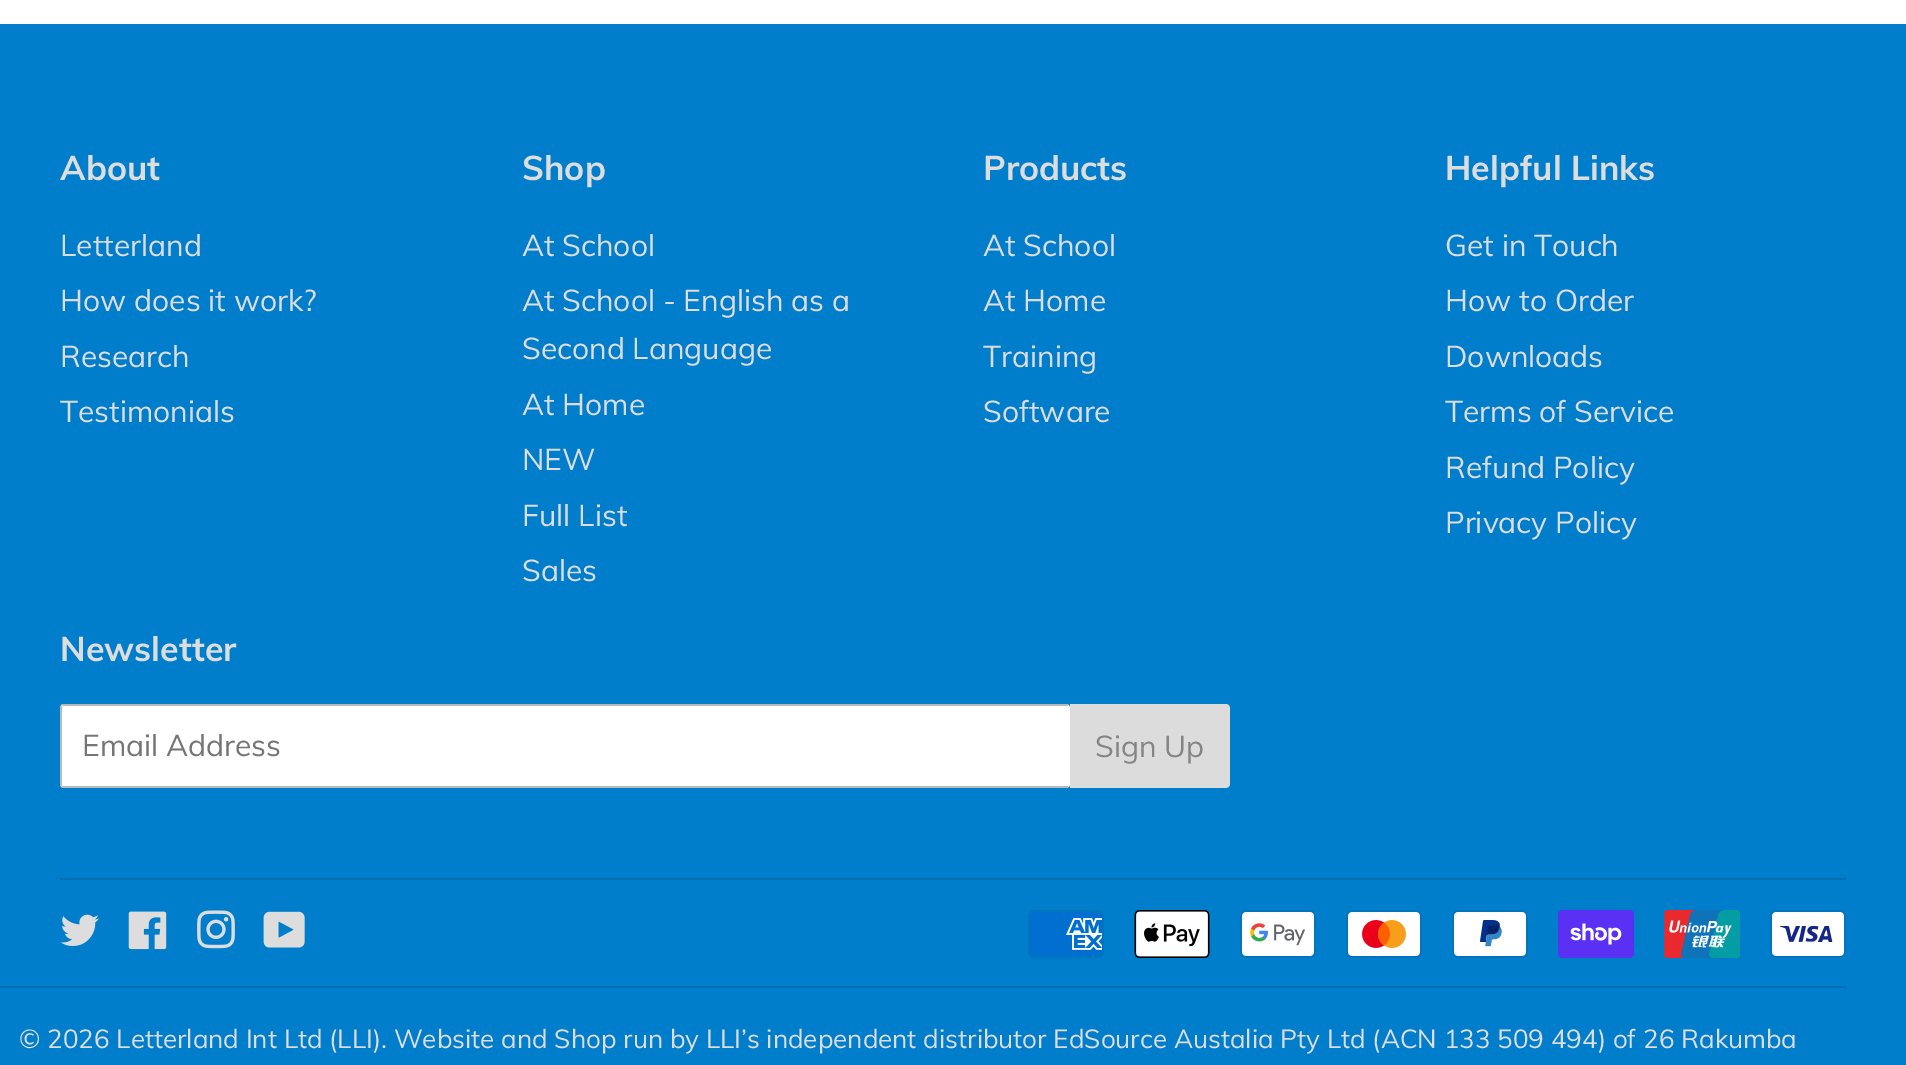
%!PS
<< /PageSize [1906 1065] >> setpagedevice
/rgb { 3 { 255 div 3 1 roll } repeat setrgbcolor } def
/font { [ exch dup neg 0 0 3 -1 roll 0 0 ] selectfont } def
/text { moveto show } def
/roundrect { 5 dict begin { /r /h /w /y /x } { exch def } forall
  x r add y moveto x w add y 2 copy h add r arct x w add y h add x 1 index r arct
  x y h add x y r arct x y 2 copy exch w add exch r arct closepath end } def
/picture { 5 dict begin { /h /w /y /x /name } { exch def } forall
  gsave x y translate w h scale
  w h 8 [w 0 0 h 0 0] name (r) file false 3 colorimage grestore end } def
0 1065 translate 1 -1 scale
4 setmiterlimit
255 255 255 rgb
0 0 1906 1065 rectfill
0 126 204 rgb
0 24 1906 1041 rectfill
255 255 255 rgb
60 704 1010 84 4 roundrect fill
185 185 185 rgb
62 704 1006 2 rectfill
62 786 1006 2 rectfill
60 706 2 80 rectfill
220 220 220 rgb
1070 704 moveto 156 0 rlineto 2 0 4 2 4 4 rcurveto 0 76 rlineto 0 2 -2 4 -4 4 rcurveto -156 0 rlineto closepath fill
0 110 179 rgb
60 878 1786 2 rectfill
(img_01.rgb) 60 914 39 32 picture
(img_02.rgb) 128 911 39 39 picture
(img_03.rgb) 197 910 38 39 picture
(img_04.rgb) 263 911 42 37 picture
(img_05.rgb) 1028 910 76 48 picture
(img_06.rgb) 1134 910 76 48 picture
(img_07.rgb) 1240 910 76 48 picture
(img_08.rgb) 1346 910 76 48 picture
(img_09.rgb) 1452 910 76 48 picture
(img_10.rgb) 1558 910 76 48 picture
(img_11.rgb) 1664 910 76 48 picture
(img_12.rgb) 1770 910 76 48 picture
0 986 1846 2 rectfill
/Muli-Bold 34 font
221 221 221 rgb
(About) 60 180 text
/Muli-Regular 30 font
(Letterland) 60 256 text
(How does it work?) 60 311 text
(Research) 60 367 text
(Testimonials) 60 422 text
/Muli-Bold 34 font
(Shop) 522 180 text
/Muli-Regular 30 font
(At School) 522 256 text
(At School - English as a) 522 311 text
(Second Language) 522 359 text
(At Home) 522 415 text
(NEW) 522 470 text
(Full List) 522 526 text
(Sales) 522 581 text
/Muli-Bold 34 font
(Products) 983 180 text
/Muli-Regular 30 font
(At School) 983 256 text
(At Home) 983 311 text
(Training) 983 367 text
(Software) 983 422 text
/Muli-Bold 34 font
(Helpful Links) 1445 180 text
/Muli-Regular 30 font
(Get in Touch) 1445 256 text
(How to Order) 1445 311 text
(Downloads) 1445 367 text
(Terms of Service) 1445 422 text
(Refund Policy) 1445 478 text
(Privacy Policy) 1445 533 text
/Muli-Bold 34 font
(Newsletter) 60 661 text
/Muli-Regular 30 font
117 117 117 rgb
(Email Address) 82 756 text
133 133 133 rgb
(Sign Up) 1095 757 text
/Muli-Regular 26 font
221 221 221 rgb
(© 2026 Letterland Int Ltd \(LLI\). Website and Shop run by LLI’s independent distributor EdSource Austalia Pty Ltd \(ACN 133 509 494\) of 26 Rakumba) 19 1048 text
showpage
